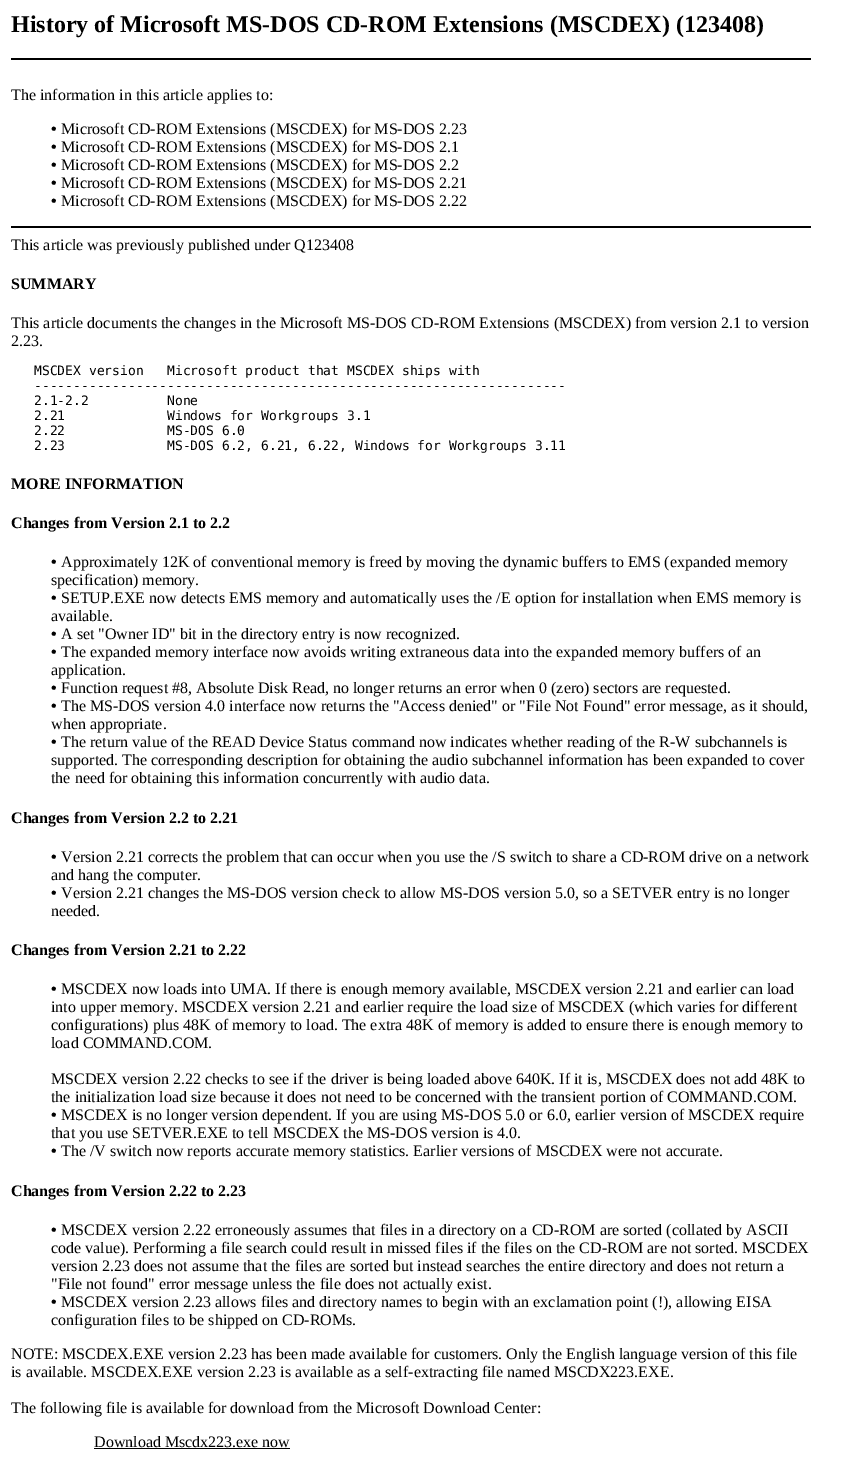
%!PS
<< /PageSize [864 1473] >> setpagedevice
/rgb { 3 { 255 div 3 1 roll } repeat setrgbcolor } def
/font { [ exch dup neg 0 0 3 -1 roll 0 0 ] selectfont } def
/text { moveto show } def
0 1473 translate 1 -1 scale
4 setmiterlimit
255 255 255 rgb
0 0 864 1473 rectfill
0 0 0 rgb
11 58 800 2 rectfill
11 226 800 2 rectfill
94 1448 196 1 rectfill
/LiberationSerif-Bold 24 font
(History of Microsoft MS-DOS CD-ROM Extensions \(MSCDEX\) \(123408\)) 11 32 text
/LiberationSerif-Regular 16 font
(The information in this article applies to:) 11 100 text
/LiberationSerif-Bold 16 font
(•) 51 134 text
/LiberationSerif-Regular 16 font
(Microsoft CD-ROM Extensions \(MSCDEX\) for MS-DOS 2.23) 61 134 text
/LiberationSerif-Bold 16 font
(•) 51 152 text
/LiberationSerif-Regular 16 font
(Microsoft CD-ROM Extensions \(MSCDEX\) for MS-DOS 2.1) 61 152 text
/LiberationSerif-Bold 16 font
(•) 51 170 text
/LiberationSerif-Regular 16 font
(Microsoft CD-ROM Extensions \(MSCDEX\) for MS-DOS 2.2) 61 170 text
/LiberationSerif-Bold 16 font
(•) 51 188 text
/LiberationSerif-Regular 16 font
(Microsoft CD-ROM Extensions \(MSCDEX\) for MS-DOS 2.21) 61 188 text
/LiberationSerif-Bold 16 font
(•) 51 206 text
/LiberationSerif-Regular 16 font
(Microsoft CD-ROM Extensions \(MSCDEX\) for MS-DOS 2.22) 61 206 text
(This article was previously published under Q123408) 11 250 text
/LiberationSerif-Bold 16 font
(SUMMARY) 11 289 text
/LiberationSerif-Regular 16 font
(This article documents the changes in the Microsoft MS-DOS CD-ROM Extensions \(MSCDEX\) from version 2.1 to version) 11 328 text
(2.23.) 11 346 text
/DejaVuSansMono-Regular 13 font
(MSCDEX version   Microsoft product that MSCDEX ships with) 34 375 text
(--------------------------------------------------------------------) 34 390 text
(2.1-2.2          None) 34 405 text
(2.21             Windows for Workgroups 3.1) 34 420 text
(2.22             MS-DOS 6.0) 34 435 text
(2.23             MS-DOS 6.2, 6.21, 6.22, Windows for Workgroups 3.11) 34 450 text
/LiberationSerif-Bold 16 font
(MORE INFORMATION) 11 489 text
(Changes from Version 2.1 to 2.2) 11 528 text
(•) 51 567 text
/LiberationSerif-Regular 16 font
(Approximately 12K of conventional memory is freed by moving the dynamic buffers to EMS \(expanded memory) 61 567 text
(specification\) memory.) 51 585 text
/LiberationSerif-Bold 16 font
(•) 51 603 text
/LiberationSerif-Regular 16 font
(SETUP.EXE now detects EMS memory and automatically uses the /E option for installation when EMS memory is) 61 603 text
(available.) 51 621 text
/LiberationSerif-Bold 16 font
(•) 51 639 text
/LiberationSerif-Regular 16 font
(A set "Owner ID" bit in the directory entry is now recognized.) 61 639 text
/LiberationSerif-Bold 16 font
(•) 51 657 text
/LiberationSerif-Regular 16 font
(The expanded memory interface now avoids writing extraneous data into the expanded memory buffers of an) 61 657 text
(application.) 51 675 text
/LiberationSerif-Bold 16 font
(•) 51 693 text
/LiberationSerif-Regular 16 font
(Function request #8, Absolute Disk Read, no longer returns an error when 0 \(zero\) sectors are requested.) 61 693 text
/LiberationSerif-Bold 16 font
(•) 51 711 text
/LiberationSerif-Regular 16 font
(The MS-DOS version 4.0 interface now returns the "Access denied" or "File Not Found" error message, as it should,) 61 711 text
(when appropriate.) 51 729 text
/LiberationSerif-Bold 16 font
(•) 51 747 text
/LiberationSerif-Regular 16 font
(The return value of the READ Device Status command now indicates whether reading of the R-W subchannels is) 61 747 text
(supported. The corresponding description for obtaining the audio subchannel information has been expanded to cover) 51 765 text
(the need for obtaining this information concurrently with audio data.) 51 783 text
/LiberationSerif-Bold 16 font
(Changes from Version 2.2 to 2.21) 11 823 text
(•) 51 862 text
/LiberationSerif-Regular 16 font
(Version 2.21 corrects the problem that can occur when you use the /S switch to share a CD-ROM drive on a network) 61 862 text
(and hang the computer.) 51 880 text
/LiberationSerif-Bold 16 font
(•) 51 898 text
/LiberationSerif-Regular 16 font
(Version 2.21 changes the MS-DOS version check to allow MS-DOS version 5.0, so a SETVER entry is no longer) 61 898 text
(needed.) 51 916 text
/LiberationSerif-Bold 16 font
(Changes from Version 2.21 to 2.22) 11 955 text
(•) 51 994 text
/LiberationSerif-Regular 16 font
(MSCDEX now loads into UMA. If there is enough memory available, MSCDEX version 2.21 and earlier can load) 61 994 text
(into upper memory. MSCDEX version 2.21 and earlier require the load size of MSCDEX \(which varies for different) 51 1012 text
(configurations\) plus 48K of memory to load. The extra 48K of memory is added to ensure there is enough memory to) 51 1030 text
(load COMMAND.COM.) 51 1048 text
(MSCDEX version 2.22 checks to see if the driver is being loaded above 640K. If it is, MSCDEX does not add 48K to) 51 1084 text
(the initialization load size because it does not need to be concerned with the transient portion of COMMAND.COM.) 51 1102 text
/LiberationSerif-Bold 16 font
(•) 51 1120 text
/LiberationSerif-Regular 16 font
(MSCDEX is no longer version dependent. If you are using MS-DOS 5.0 or 6.0, earlier version of MSCDEX require) 61 1120 text
(that you use SETVER.EXE to tell MSCDEX the MS-DOS version is 4.0.) 51 1138 text
/LiberationSerif-Bold 16 font
(•) 51 1156 text
/LiberationSerif-Regular 16 font
(The /V switch now reports accurate memory statistics. Earlier versions of MSCDEX were not accurate.) 61 1156 text
/LiberationSerif-Bold 16 font
(Changes from Version 2.22 to 2.23) 11 1196 text
(•) 51 1235 text
/LiberationSerif-Regular 16 font
(MSCDEX version 2.22 erroneously assumes that files in a directory on a CD-ROM are sorted \(collated by ASCII) 61 1235 text
(code value\). Performing a file search could result in missed files if the files on the CD-ROM are not sorted. MSCDEX) 51 1253 text
(version 2.23 does not assume that the files are sorted but instead searches the entire directory and does not return a) 51 1271 text
("File not found" error message unless the file does not actually exist.) 51 1289 text
/LiberationSerif-Bold 16 font
(•) 51 1307 text
/LiberationSerif-Regular 16 font
(MSCDEX version 2.23 allows files and directory names to begin with an exclamation point \(!\), allowing EISA) 61 1307 text
(configuration files to be shipped on CD-ROMs.) 51 1325 text
(NOTE: MSCDEX.EXE version 2.23 has been made available for customers. Only the English language version of this file) 11 1359 text
(is available. MSCDEX.EXE version 2.23 is available as a self-extracting file named MSCDX223.EXE.) 11 1377 text
(The following file is available for download from the Microsoft Download Center:) 11 1413 text
(Download Mscdx223.exe now) 94 1447 text
showpage
